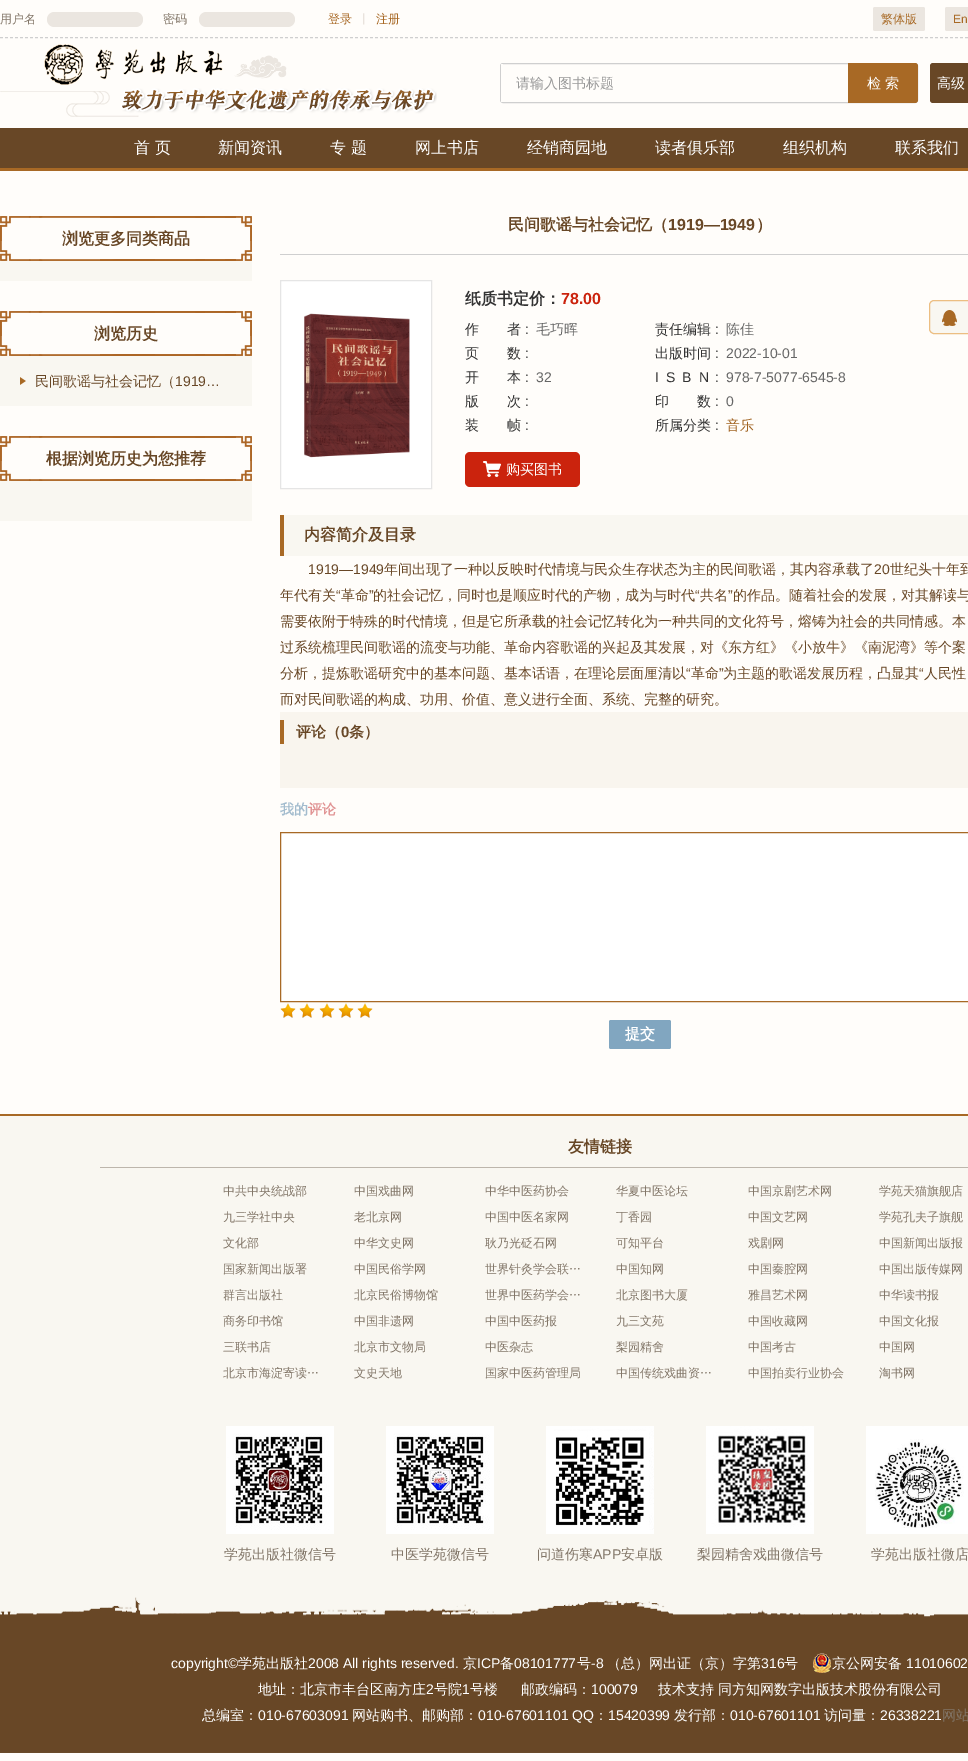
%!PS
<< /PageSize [968 1761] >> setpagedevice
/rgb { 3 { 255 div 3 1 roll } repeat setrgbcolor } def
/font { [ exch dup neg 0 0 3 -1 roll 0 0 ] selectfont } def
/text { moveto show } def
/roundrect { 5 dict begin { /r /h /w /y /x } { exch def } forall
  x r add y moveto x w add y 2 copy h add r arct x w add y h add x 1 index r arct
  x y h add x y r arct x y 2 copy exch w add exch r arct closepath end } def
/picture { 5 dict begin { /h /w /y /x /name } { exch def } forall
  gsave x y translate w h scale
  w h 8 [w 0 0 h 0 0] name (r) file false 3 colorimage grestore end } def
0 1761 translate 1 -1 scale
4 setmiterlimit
255 253 250 rgb
0 0 968 1761 rectfill
207 207 207 rgb
[3 2] 0 setdash
0 37.5 moveto 968 0 rlineto stroke
235 230 224 rgb
47 12 96 15 7.5 roundrect fill
199 12 96 15 7.5 roundrect fill
873 7 52 24 2 roundrect fill
945 7 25 24 2 roundrect fill
(img_01.rgb) 0 44 437 73 picture
207 207 207 rgb
[] 0 setdash
500.5 63.5 417 39 2.5 roundrect stroke
255 253 250 rgb
501 64 2 38 rectfill
168 105 37 rgb
848 63 moveto 67 0 rlineto 1.5 0 3 1.5 3 3 rcurveto 0 34 rlineto 0 1.5 -1.5 3 -3 3 rcurveto -67 0 rlineto closepath fill
104 71 38 rgb
930 63 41 40 3 roundrect fill
0 128 968 40 rectfill
168 105 37 rgb
0 168 968 3 rectfill
(img_02.rgb) 0 216 252 45 picture
249 247 241 rgb
0 261 252 20 rectfill
(img_02.rgb) 0 311 252 45 picture
0 356 252 50 rectfill
(img_03.rgb) 20 377 6 8 picture
(img_02.rgb) 0 436 252 45 picture
0 481 252 40 rectfill
207 207 207 rgb
280 254 688 1 rectfill
255 255 255 rgb
280.5 280.5 moveto 151 0 rlineto 0 208 rlineto -151 0 rlineto closepath gsave fill grestore
229 229 229 rgb
stroke
(img_04.rgb) 304 313 106 145 picture
249 247 241 rgb
929.5 300.5 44 33 4.5 roundrect gsave fill grestore
236 190 130 rgb
stroke
(img_05.rgb) 942 310 15 16 picture
203 35 13 rgb
465 452 115 35 5 roundrect fill
(img_06.rgb) 483 461 18 16 picture
249 247 241 rgb
284 515 684 41 rectfill
168 105 37 rgb
280 515 4 41 rectfill
249 245 238 rgb
280 712 688 76 rectfill
168 105 37 rgb
280 720 4 24 rectfill
255 255 255 rgb
280.5 832.5 moveto 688 0 rlineto 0 169 rlineto -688 0 rlineto closepath gsave fill grestore
168 105 37 rgb
stroke
(img_07.rgb) 280 1003 16 15 picture
(img_07.rgb) 299 1003 16 15 picture
(img_07.rgb) 319 1003 16 15 picture
(img_07.rgb) 338 1003 16 15 picture
(img_07.rgb) 357 1003 16 15 picture
129 166 192 rgb
609 1020 62 29 2 roundrect fill
249 247 241 rgb
0 1116 968 637 rectfill
(img_08.rgb) 0 1597 968 156 picture
168 105 37 rgb
0 1114 968 2 rectfill
189 182 172 rgb
100 1167 868 1 rectfill
(img_09.rgb) 226 1426 108 108 picture
(img_10.rgb) 386 1426 108 108 picture
(img_11.rgb) 546 1426 108 108 picture
(img_12.rgb) 706 1426 108 108 picture
(img_13.rgb) 866 1426 102 108 picture
(img_14.rgb) 813 1653 18 20 picture
/WenQuanYiZenHei-Medium 12 font
130 118 104 rgb
(用户名) 0 23 text
(密码) 163 23 text
168 105 37 rgb
(登录) 328 23 text
226 218 211 rgb
(丨) 358 23 text
168 105 37 rgb
(注册) 376 23 text
(繁体版) 881 23 text
/LiberationSans-Regular 12 font
(En) 953 23 text
/WenQuanYiZenHei-Medium 14 font
153 153 153 rgb
(请输入图书标题) 516 88 text
255 255 255 rgb
(检 索) 867 88 text
(高级) 937 88 text
/WenQuanYiZenHei-Medium 16 font
(首 页) 134 153 text
(新闻资讯) 218 153 text
(专 题) 330 153 text
(网上书店) 415 153 text
(经销商园地) 527 153 text
(读者俱乐部) 655 153 text
(组织机构) 783 153 text
(联系我们) 895 153 text
/WenQuanYiZenHei-Bold 16 font
104 71 38 rgb
(浏览更多同类商品) 62 244 text
(浏览历史) 94 339 text
/WenQuanYiZenHei-Medium 14 font
(民间歌谣与社会记忆（) 35 386 text
/LiberationSans-Regular 14 font
(1919…) 175 386 text
/WenQuanYiZenHei-Bold 16 font
(根据浏览历史为您推荐) 46 464 text
(民间歌谣与社会记忆（) 508 230 text
/LiberationSans-Bold 16 font
(1919—1949) 668 230 text
/WenQuanYiZenHei-Bold 16 font
(）) 756 230 text
51 51 51 rgb
(纸质书定价：) 465 304 text
/LiberationSans-Bold 16 font
203 35 13 rgb
(78.00) 561 304 text
/WenQuanYiZenHei-Medium 14 font
51 51 51 rgb
465 334 moveto 28 0 (作者) ashow
/LiberationSans-Regular 14 font
(:) 525 334 text
/WenQuanYiZenHei-Medium 14 font
102 102 102 rgb
(毛巧晖) 536 334 text
51 51 51 rgb
(责任编辑) 655 334 text
/LiberationSans-Regular 14 font
(:) 715 334 text
/WenQuanYiZenHei-Medium 14 font
102 102 102 rgb
(陈佳) 726 334 text
51 51 51 rgb
465 358 moveto 28 0 (页数) ashow
/LiberationSans-Regular 14 font
(:) 525 358 text
/WenQuanYiZenHei-Medium 14 font
(出版时间) 655 358 text
/LiberationSans-Regular 14 font
(:) 715 358 text
102 102 102 rgb
(2022-10-01) 726 358 text
/WenQuanYiZenHei-Medium 14 font
51 51 51 rgb
465 382 moveto 28 0 (开本) ashow
/LiberationSans-Regular 14 font
(:) 525 382 text
102 102 102 rgb
(32) 536 382 text
51 51 51 rgb
655 382 moveto 7 0 (ISBN) ashow
(:) 715 382 text
102 102 102 rgb
(978-7-5077-6545-8) 726 382 text
/WenQuanYiZenHei-Medium 14 font
51 51 51 rgb
465 406 moveto 28 0 (版次) ashow
/LiberationSans-Regular 14 font
(:) 525 406 text
/WenQuanYiZenHei-Medium 14 font
655 406 moveto 28 0 (印数) ashow
/LiberationSans-Regular 14 font
(:) 715 406 text
102 102 102 rgb
(0) 726 406 text
/WenQuanYiZenHei-Medium 14 font
51 51 51 rgb
465 430 moveto 28 0 (装帧) ashow
/LiberationSans-Regular 14 font
(:) 525 430 text
/WenQuanYiZenHei-Medium 14 font
(所属分类) 655 430 text
/LiberationSans-Regular 14 font
(:) 715 430 text
/WenQuanYiZenHei-Medium 14 font
162 101 36 rgb
(音乐) 726 430 text
255 255 255 rgb
(购买图书) 506 474 text
/WenQuanYiZenHei-Bold 16 font
104 71 38 rgb
(内容简介及目录) 304 540 text
/LiberationSans-Regular 14 font
(1919—1949) 308 574 text
/WenQuanYiZenHei-Medium 14 font
(年间出现了一种以反映时代情境与民众生存状态为主的民间歌谣，其内容承载了) 384 574 text
/LiberationSans-Regular 14 font
(20) 874 574 text
/WenQuanYiZenHei-Medium 14 font
(世纪头十年到) 890 574 text
(年代有关) 280 600 text
/LiberationSans-Regular 14 font
(“) 336 600 text
/WenQuanYiZenHei-Medium 14 font
(革命) 341 600 text
/LiberationSans-Regular 14 font
(”) 369 600 text
/WenQuanYiZenHei-Medium 14 font
(的社会记忆，同时也是顺应时代的产物，成为与时代) 373 600 text
/LiberationSans-Regular 14 font
(“) 695 600 text
/WenQuanYiZenHei-Medium 14 font
(共名) 700 600 text
/LiberationSans-Regular 14 font
(”) 728 600 text
/WenQuanYiZenHei-Medium 14 font
(的作品。随着社会的发展，对其解读与) 733 600 text
(需要依附于特殊的时代情境，但是它所承载的社会记忆转化为一种共同的文化符号，熔铸为社会的共同情感。本) 280 626 text
(过系统梳理民间歌谣的流变与功能、革命内容歌谣的兴起及其发展，对《东方红》《小放牛》《南泥湾》等个案) 280 652 text
(分析，提炼歌谣研究中的基本问题、基本话语，在理论层面厘清以) 280 678 text
/LiberationSans-Regular 14 font
(“) 686 678 text
/WenQuanYiZenHei-Medium 14 font
(革命) 691 678 text
/LiberationSans-Regular 14 font
(”) 719 678 text
/WenQuanYiZenHei-Medium 14 font
(为主题的歌谣发展历程，凸显其) 723 678 text
/LiberationSans-Regular 14 font
(“) 919 678 text
/WenQuanYiZenHei-Medium 14 font
(人民性) 924 678 text
(而对民间歌谣的构成、功用、价值、意义进行全面、系统、完整的研究。) 280 704 text
/WenQuanYiZenHei-Bold 15 font
(评论（) 296 737 text
/LiberationSans-Bold 15 font
(0) 341 737 text
/WenQuanYiZenHei-Bold 15 font
(条）) 349 737 text
/WenQuanYiZenHei-Bold 14 font
163 188 206 rgb
(我的) 280 814 text
225 148 148 rgb
(评论) 308 814 text
/WenQuanYiZenHei-Bold 15 font
255 255 255 rgb
(提交) 625 1039 text
/WenQuanYiZenHei-Bold 16 font
104 71 38 rgb
(友情链接) 568 1152 text
/WenQuanYiZenHei-Medium 12 font
130 118 104 rgb
(中共中央统战部) 223 1195 text
(九三学社中央) 223 1221 text
(文化部) 223 1247 text
(国家新闻出版署) 223 1273 text
(群言出版社) 223 1299 text
(商务印书馆) 223 1325 text
(三联书店) 223 1351 text
(北京市海淀寄读…) 223 1377 text
(中国戏曲网) 354 1195 text
(老北京网) 354 1221 text
(中华文史网) 354 1247 text
(中国民俗学网) 354 1273 text
(北京民俗博物馆) 354 1299 text
(中国非遗网) 354 1325 text
(北京市文物局) 354 1351 text
(文史天地) 354 1377 text
(中华中医药协会) 485 1195 text
(中国中医名家网) 485 1221 text
(耿乃光砭石网) 485 1247 text
(世界针灸学会联…) 485 1273 text
(世界中医药学会…) 485 1299 text
(中国中医药报) 485 1325 text
(中医杂志) 485 1351 text
(国家中医药管理局) 485 1377 text
(华夏中医论坛) 616 1195 text
(丁香园) 616 1221 text
(可知平台) 616 1247 text
(中国知网) 616 1273 text
(北京图书大厦) 616 1299 text
(九三文苑) 616 1325 text
(梨园精舍) 616 1351 text
(中国传统戏曲资…) 616 1377 text
(中国京剧艺术网) 748 1195 text
(中国文艺网) 748 1221 text
(戏剧网) 748 1247 text
(中国秦腔网) 748 1273 text
(雅昌艺术网) 748 1299 text
(中国收藏网) 748 1325 text
(中国考古) 748 1351 text
(中国拍卖行业协会) 748 1377 text
(学苑天猫旗舰店) 879 1195 text
(学苑孔夫子旗舰) 879 1221 text
(中国新闻出版报) 879 1247 text
(中国出版传媒网) 879 1273 text
(中华读书报) 879 1299 text
(中国文化报) 879 1325 text
(中国网) 879 1351 text
(淘书网) 879 1377 text
/WenQuanYiZenHei-Medium 14 font
(学苑出版社微信号) 224 1559 text
(中医学苑微信号) 391 1559 text
(问道伤寒) 537 1559 text
/LiberationSans-Regular 14 font
(APP) 593 1559 text
/WenQuanYiZenHei-Medium 14 font
(安卓版) 621 1559 text
(梨园精舍戏曲微信号) 697 1559 text
(学苑出版社微店) 871 1559 text
/LiberationSans-Regular 14 font
255 255 255 rgb
(copyright©) 171 1668 text
/WenQuanYiZenHei-Medium 14 font
(学苑出版社) 238 1668 text
/LiberationSans-Regular 14 font
(2008 All rights reserved.) 308 1668 text
/WenQuanYiZenHei-Medium 14 font
(京) 463 1668 text
/LiberationSans-Regular 14 font
(ICP) 477 1668 text
/WenQuanYiZenHei-Medium 14 font
(备) 500 1668 text
/LiberationSans-Regular 14 font
(08101777) 514 1668 text
/WenQuanYiZenHei-Medium 14 font
(号) 577 1668 text
/LiberationSans-Regular 14 font
(-8) 591 1668 text
/WenQuanYiZenHei-Medium 14 font
(（总）网出证（京）字第) 607 1668 text
/LiberationSans-Regular 14 font
(316) 761 1668 text
/WenQuanYiZenHei-Medium 14 font
(号) 784 1668 text
(京公网安备) 832 1668 text
/LiberationSans-Regular 14 font
(11010602) 906 1668 text
/WenQuanYiZenHei-Medium 14 font
(地址：北京市丰台区南方庄) 258 1694 text
/LiberationSans-Regular 14 font
(2) 426 1694 text
/WenQuanYiZenHei-Medium 14 font
(号院) 434 1694 text
/LiberationSans-Regular 14 font
(1) 462 1694 text
/WenQuanYiZenHei-Medium 14 font
(号楼) 470 1694 text
(邮政编码：) 521 1694 text
/LiberationSans-Regular 14 font
(100079) 591 1694 text
/WenQuanYiZenHei-Medium 14 font
(技术支持) 658 1694 text
(同方知网数字出版技术股份有限公司) 718 1694 text
(总编室：) 202 1720 text
/LiberationSans-Regular 14 font
(010-67603091) 258 1720 text
/WenQuanYiZenHei-Medium 14 font
(网站购书、邮购部：) 352 1720 text
/LiberationSans-Regular 14 font
(010-67601101 QQ) 478 1720 text
/WenQuanYiZenHei-Medium 14 font
(：) 594 1720 text
/LiberationSans-Regular 14 font
(15420399) 608 1720 text
/WenQuanYiZenHei-Medium 14 font
(发行部：) 674 1720 text
/LiberationSans-Regular 14 font
(010-67601101) 730 1720 text
/WenQuanYiZenHei-Medium 14 font
(访问量：) 824 1720 text
/LiberationSans-Regular 14 font
(26338221) 880 1720 text
/WenQuanYiZenHei-Medium 14 font
130 118 104 rgb
(网站) 942 1720 text
showpage
